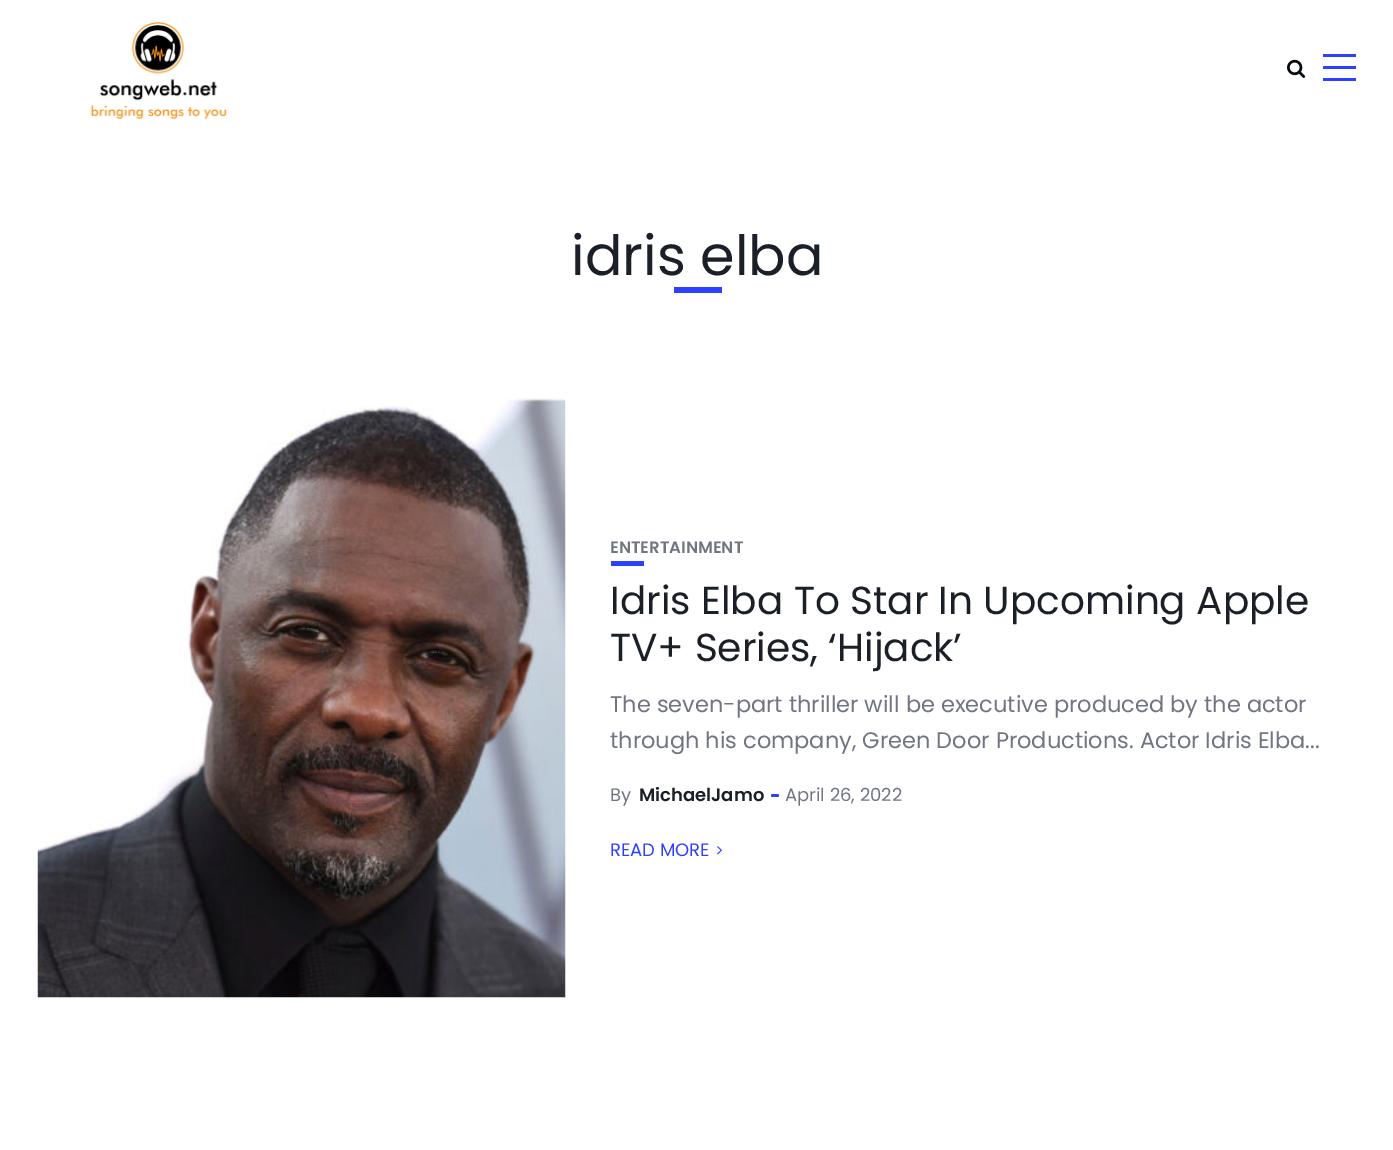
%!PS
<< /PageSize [1393 1150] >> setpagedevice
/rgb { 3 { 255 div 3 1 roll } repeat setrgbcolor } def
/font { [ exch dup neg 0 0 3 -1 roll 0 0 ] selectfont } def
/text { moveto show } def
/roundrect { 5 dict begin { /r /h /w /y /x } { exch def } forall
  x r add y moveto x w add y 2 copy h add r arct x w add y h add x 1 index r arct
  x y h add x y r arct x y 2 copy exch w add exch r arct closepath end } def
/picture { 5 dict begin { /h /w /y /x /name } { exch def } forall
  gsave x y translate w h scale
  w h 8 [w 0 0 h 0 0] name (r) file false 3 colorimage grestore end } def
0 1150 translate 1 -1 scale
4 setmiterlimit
255 255 255 rgb
0 0 1393 1150 rectfill
(img_01.rgb) 90 22 137 97 picture
(img_02.rgb) 1287 59 19 19 picture
44 64 255 rgb
1323 54 33 3 rectfill
1323 66 33 3 rectfill
1323 78 33 3 rectfill
674 287 48 6 rectfill
(img_03.rgb) 37 398 529 600 picture
611 561 33 5 rectfill
771 794 8 3 1.5 roundrect fill
(img_04.rgb) 717 846 5 9 picture
/Poppins-Regular 55.5 font
26 31 40 rgb
(idris elba) 571 275 text
/Poppins-SemiBold 16.5 font
113 117 130 rgb
(ENTERTAINMENT) 610 553 text
/Poppins-Regular 39 font
26 31 40 rgb
(Idris Elba To Star In Upcoming Apple) 610 614 text
(TV+ Series, ‘Hijack’) 610 661 text
/Poppins-Regular 22.5 font
113 117 130 rgb
(The seven-part thriller will be executive produced by the actor) 610 712 text
(through his company, Green Door Productions. Actor Idris Elba...) 610 748 text
/Poppins-Regular 18 font
(By) 610 801 text
/Poppins-SemiBold 18 font
26 31 40 rgb
(MichaelJamo) 639 801 text
/Poppins-Regular 18 font
113 117 130 rgb
(April 26, 2022) 785 801 text
44 64 255 rgb
(READ MORE) 610 856 text
showpage
